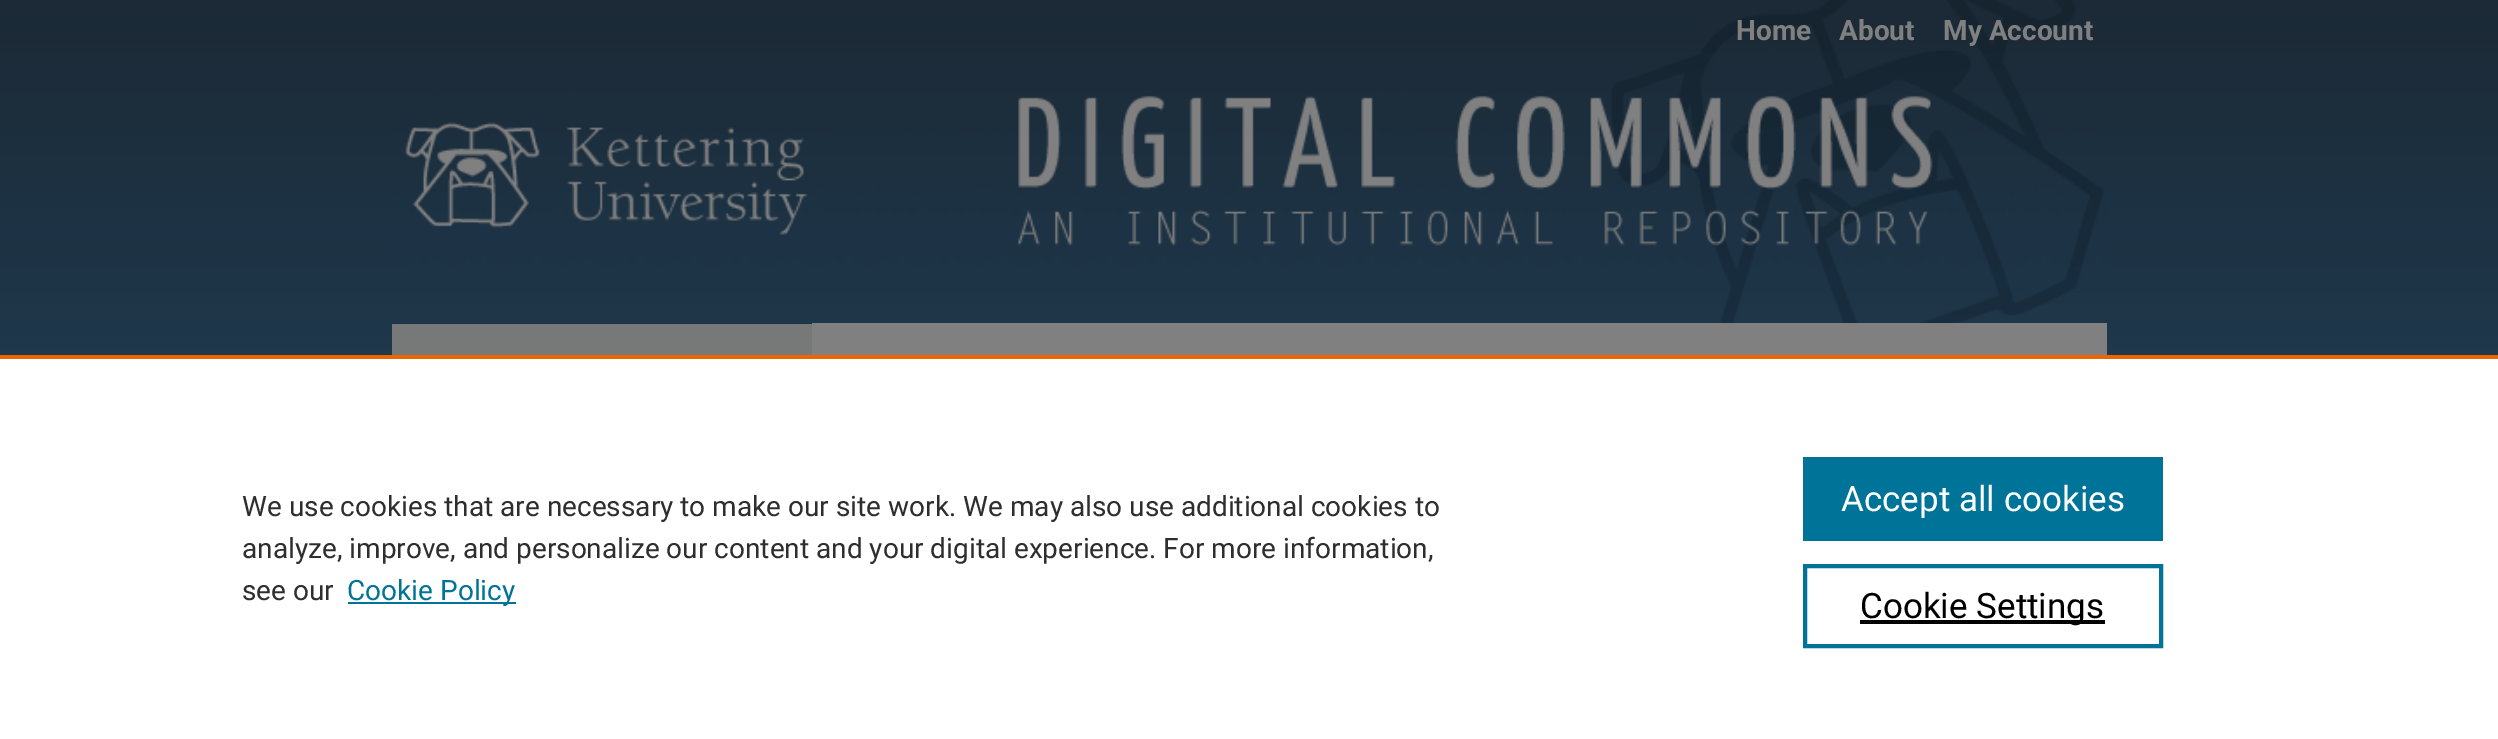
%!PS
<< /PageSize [2498 739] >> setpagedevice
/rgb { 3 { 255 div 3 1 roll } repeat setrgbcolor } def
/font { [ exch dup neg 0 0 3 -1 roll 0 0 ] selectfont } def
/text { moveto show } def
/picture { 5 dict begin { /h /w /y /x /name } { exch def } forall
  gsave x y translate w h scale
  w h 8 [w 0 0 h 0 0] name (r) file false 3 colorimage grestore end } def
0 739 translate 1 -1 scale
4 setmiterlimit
255 255 255 rgb
0 0 2498 739 rectfill
(img_01.rgb) 0 0 2498 355 picture
27 42 55 rgb
392 67 1715 257 rectfill
(img_02.rgb) 1700 0 376 54 picture
(img_03.rgb) 392 62 420 262 picture
(img_04.rgb) 812 54 1295 269 picture
119 121 121 rgb
392 324 420 31 rectfill
128 128 128 rgb
812 323 1295 32 rectfill
235 101 0 rgb
0 355 2498 4 rectfill
0 115 152 rgb
348 602 168 2 rectfill
1803 457 360 84 rectfill
4 setlinewidth
1805 566 356 80 rectstroke
0 0 0 rgb
1860 620 245 4 rectfill
/Roboto-Bold 28 font
128 128 128 rgb
(Home) 1736 40 text
(About) 1839 40 text
(My Account) 1943 40 text
/Roboto-Regular 28 font
46 46 46 rgb
(We use cookies that are necessary to make our site work. We may also use additional cookies to) 242 516 text
(analyze, improve, and personalize our content and your digital experience. For more information,) 242 558 text
(see our) 242 600 text
0 115 152 rgb
(Cookie Policy) 347 600 text
/Roboto-Regular 35 font
255 255 255 rgb
(Accept all cookies) 1841 511 text
0 0 0 rgb
(Cookie Settings) 1860 618 text
showpage
